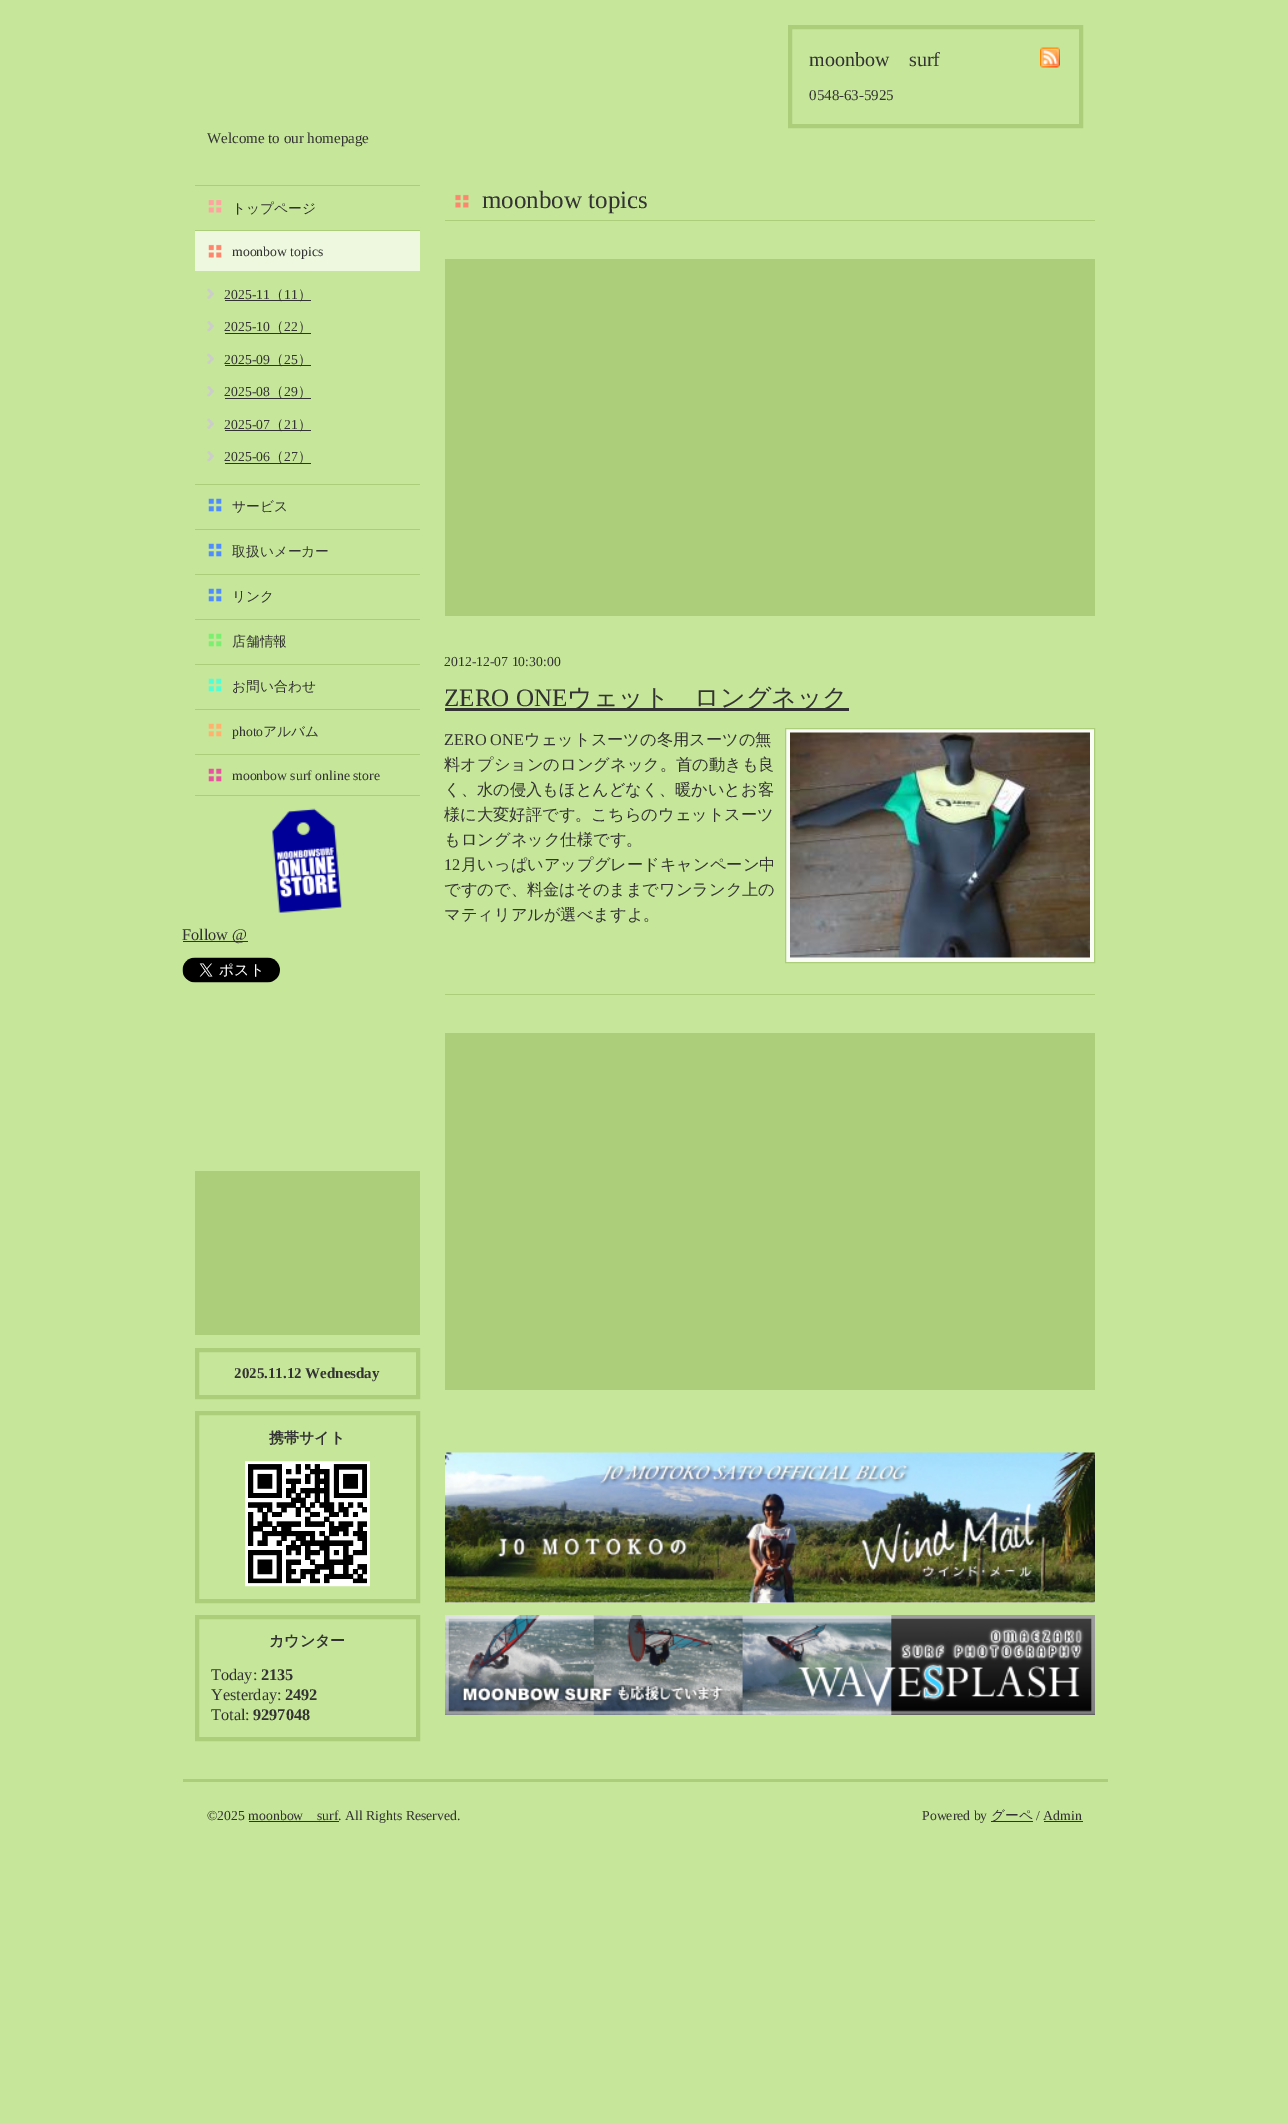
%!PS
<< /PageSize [1288 2123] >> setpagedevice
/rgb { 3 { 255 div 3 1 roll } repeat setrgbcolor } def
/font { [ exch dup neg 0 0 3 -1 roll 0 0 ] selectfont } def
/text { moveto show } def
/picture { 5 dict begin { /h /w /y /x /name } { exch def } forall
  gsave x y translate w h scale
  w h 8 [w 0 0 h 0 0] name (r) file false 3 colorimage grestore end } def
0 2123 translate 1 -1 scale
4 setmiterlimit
198 230 153 rgb
0 0 1288 2123 rectfill
172 206 123 rgb
4 setlinewidth
790 27 291 99 rectstroke
(img_01.rgb) 1040 47 20 21 picture
195 185 225 1 rectfill
195 230 225 1 rectfill
(img_02.rgb) 208 200 14 13 picture
195 484 225 1 rectfill
238 248 223 rgb
195 231 225 40 rectfill
(img_03.rgb) 208 244 14 14 picture
(img_04.rgb) 207 288 7 11 picture
51 51 51 rgb
225 300 86 1 rectfill
(img_05.rgb) 207 321 7 11 picture
225 333 86 1 rectfill
(img_06.rgb) 207 353 7 11 picture
225 365 86 1 rectfill
(img_05.rgb) 207 386 7 11 picture
225 398 86 1 rectfill
(img_06.rgb) 207 418 7 11 picture
225 430 86 1 rectfill
(img_05.rgb) 207 451 7 11 picture
225 463 86 1 rectfill
172 206 123 rgb
195 529 225 1 rectfill
(img_07.rgb) 208 498 14 14 picture
195 574 225 1 rectfill
(img_07.rgb) 208 543 14 14 picture
195 619 225 1 rectfill
(img_07.rgb) 208 588 14 14 picture
195 664 225 1 rectfill
(img_08.rgb) 208 633 14 14 picture
195 709 225 1 rectfill
(img_09.rgb) 208 678 14 14 picture
195 754 225 1 rectfill
(img_10.rgb) 208 723 14 14 picture
195 795 225 1 rectfill
(img_11.rgb) 208 768 14 14 picture
(img_12.rgb) 272 808 70 105 picture
51 51 51 rgb
183 941 65 1 rectfill
(img_13.rgb) 182 957 98 26 picture
(img_14.rgb) 455 194 14 14 picture
172 206 123 rgb
445 220 650 1 rectfill
445 259 650 357 rectfill
445 994 650 1 rectfill
51 51 51 rgb
445 708 404 3 rectfill
249 253 245 rgb
785.5 728.5 moveto 309 0 rlineto 0 234 rlineto -309 0 rlineto closepath gsave fill grestore
172 206 123 rgb
1 setlinewidth
stroke
(img_15.rgb) 790 732 300 226 picture
445 1033 650 357 rectfill
255 255 255 rgb
445 1602 650 1 rectfill
(img_16.rgb) 445 1452 650 151 picture
(img_17.rgb) 445 1615 650 100 picture
172 206 123 rgb
195 1171 225 164 rectfill
4 setlinewidth
197 1350 221 47 rectstroke
197 1413 221 188 rectstroke
(img_18.rgb) 245 1461 125 126 picture
197 1617 221 122 rectstroke
183 1779 925 3 rectfill
51 51 51 rgb
249 1821 90 1 rectfill
991 1821 42 1 rectfill
1044 1821 39 1 rectfill
/LiberationSerif-Regular 20 font
(moonbow) 809 66 text
(surf) 909 66 text
/LiberationSerif-Regular 15 font
(0548-63-5925) 809 100 text
(Welcome to our homepage) 207 143 text
/WenQuanYiZenHei-Medium 13.75 font
(トップページ) 232 213 text
/LiberationSerif-Regular 13.75 font
(moonbow topics) 232 256 text
(2025-11) 224 299 text
/WenQuanYiZenHei-Medium 13.75 font
(（) 270 299 text
/LiberationSerif-Regular 13.75 font
(11) 284 299 text
/WenQuanYiZenHei-Medium 13.75 font
(）) 298 299 text
/LiberationSerif-Regular 13.75 font
(2025-10) 224 331 text
/WenQuanYiZenHei-Medium 13.75 font
(（) 270 331 text
/LiberationSerif-Regular 13.75 font
(22) 284 331 text
/WenQuanYiZenHei-Medium 13.75 font
(）) 298 331 text
/LiberationSerif-Regular 13.75 font
(2025-09) 224 364 text
/WenQuanYiZenHei-Medium 13.75 font
(（) 270 364 text
/LiberationSerif-Regular 13.75 font
(25) 284 364 text
/WenQuanYiZenHei-Medium 13.75 font
(）) 298 364 text
/LiberationSerif-Regular 13.75 font
(2025-08) 224 396 text
/WenQuanYiZenHei-Medium 13.75 font
(（) 270 396 text
/LiberationSerif-Regular 13.75 font
(29) 284 396 text
/WenQuanYiZenHei-Medium 13.75 font
(）) 298 396 text
/LiberationSerif-Regular 13.75 font
(2025-07) 224 429 text
/WenQuanYiZenHei-Medium 13.75 font
(（) 270 429 text
/LiberationSerif-Regular 13.75 font
(21) 284 429 text
/WenQuanYiZenHei-Medium 13.75 font
(）) 298 429 text
/LiberationSerif-Regular 13.75 font
(2025-06) 224 461 text
/WenQuanYiZenHei-Medium 13.75 font
(（) 270 461 text
/LiberationSerif-Regular 13.75 font
(27) 284 461 text
/WenQuanYiZenHei-Medium 13.75 font
(）) 298 461 text
(サービス) 232 511 text
(取扱いメーカー) 232 556 text
(リンク) 232 601 text
(店舗情報) 232 646 text
(お問い合わせ) 232 691 text
/LiberationSerif-Regular 13.75 font
(photo) 232 736 text
/WenQuanYiZenHei-Medium 13.75 font
(アルバム) 263 736 text
/LiberationSerif-Regular 13.75 font
(moonbow surf online store) 232 780 text
/LiberationSerif-Regular 16.25 font
(Follow @) 182 940 text
/LiberationSerif-Regular 25 font
(moonbow topics) 482 208 text
/LiberationSerif-Regular 13.75 font
(2012-12-07 10:30:00) 444 666 text
/LiberationSerif-Regular 25 font
(ZERO ONE) 444 706 text
/WenQuanYiZenHei-Medium 25 font
(ウェット　ロングネック) 567 706 text
/LiberationSerif-Regular 16.25 font
(ZERO ONE) 444 745 text
/WenQuanYiZenHei-Medium 16.25 font
(ウェットスーツの冬用スーツの無) 524 745 text
(料オプションのロングネック。首の動きも良) 444 770 text
(く、水の侵入もほとんどなく、暖かいとお客) 444 795 text
(様に大変好評です。こちらのウェットスーツ) 444 820 text
(もロングネック仕様です。) 444 845 text
/LiberationSerif-Regular 16.25 font
(12) 444 870 text
/WenQuanYiZenHei-Medium 16.25 font
(月いっぱいアップグレードキャンペーン中) 461 870 text
(ですので、料金はそのままでワンランク上の) 444 895 text
(マティリアルが選べますよ。) 444 920 text
/LiberationSerif-Bold 15 font
(2025.11.12 Wednesday) 234 1378 text
/WenQuanYiZenHei-Bold 15 font
(携帯サイト) 269 1443 text
(カウンター) 269 1646 text
/LiberationSerif-Regular 16.25 font
(Today:) 211 1680 text
/LiberationSerif-Bold 16.25 font
(2135) 261 1680 text
/LiberationSerif-Regular 16.25 font
(Yesterday:) 211 1700 text
/LiberationSerif-Bold 16.25 font
(2492) 285 1700 text
/LiberationSerif-Regular 16.25 font
(Total:) 211 1720 text
/LiberationSerif-Bold 16.25 font
(9297048) 253 1720 text
/LiberationSerif-Regular 13.75 font
(©2025 moonbow) 207 1820 text
(surf. All Rights Reserved.) 317 1820 text
(Powered by) 922 1820 text
/WenQuanYiZenHei-Medium 13.75 font
(グーペ) 991 1820 text
/LiberationSerif-Regular 13.75 font
(/ Admin) 1036 1820 text
showpage
